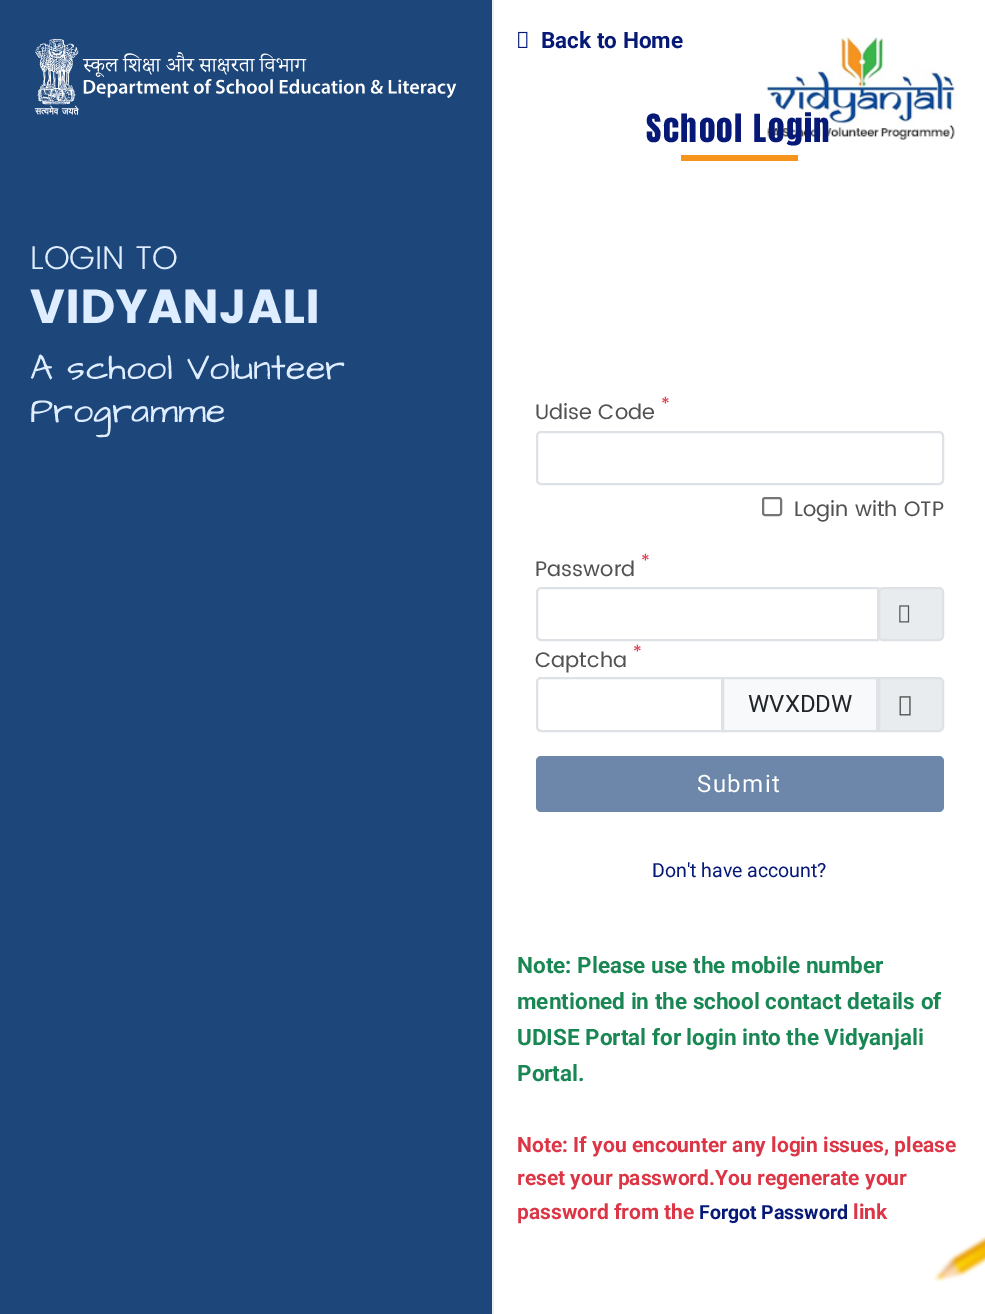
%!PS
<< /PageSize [985 1314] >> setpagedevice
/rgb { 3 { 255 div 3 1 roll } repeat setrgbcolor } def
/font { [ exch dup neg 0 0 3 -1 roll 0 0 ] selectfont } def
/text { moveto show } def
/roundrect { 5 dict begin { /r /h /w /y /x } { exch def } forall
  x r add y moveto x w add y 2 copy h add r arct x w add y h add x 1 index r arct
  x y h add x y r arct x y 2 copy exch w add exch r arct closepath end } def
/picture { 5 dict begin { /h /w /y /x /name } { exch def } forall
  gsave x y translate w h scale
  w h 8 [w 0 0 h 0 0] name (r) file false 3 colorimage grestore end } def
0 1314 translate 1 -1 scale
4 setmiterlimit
255 255 255 rgb
0 0 985 1314 rectfill
29 70 122 rgb
0 0 492 1314 rectfill
239 239 239 rgb
492 0 2 1314 rectfill
(img_01.rgb) 34 39 423 76 picture
(img_02.rgb) 518 31 10 17 picture
(img_03.rgb) 766 37 189 103 picture
247 148 29 rgb
681 155 117 6 rectfill
222 226 230 rgb
2 setlinewidth
537 432 406 52 4 roundrect stroke
118 118 118 rgb
763 498 18 17 2 roundrect stroke
233 236 239 rgb
879 588 64 52 4 roundrect gsave fill grestore
222 226 230 rgb
stroke
541 588 moveto 337 0 rlineto 0 52 rlineto -337 0 rlineto -2 0 -4 -2 -4 -4 rcurveto 0 -44 rlineto 0 -2 2 -4 4 -4 rcurveto closepath stroke
(img_04.rgb) 899 605 11 18 picture
248 249 250 rgb
723 678 moveto 154 0 rlineto 0 53 rlineto -154 0 rlineto closepath gsave fill grestore
222 226 230 rgb
stroke
541 678 moveto 181 0 rlineto 0 53 rlineto -181 0 rlineto -2 0 -4 -2 -4 -4 rcurveto 0 -45 rlineto 0 -2 2 -4 4 -4 rcurveto closepath stroke
233 236 239 rgb
879 678 moveto 60 0 rlineto 2 0 4 2 4 4 rcurveto 0 45 rlineto 0 2 -2 4 -4 4 rcurveto -60 0 rlineto closepath gsave fill grestore
222 226 230 rgb
stroke
(img_05.rgb) 899 696 12 20 picture
108 135 169 rgb
536 756 408 56 5 roundrect fill
(img_06.rgb) 934 1236 51 46 picture
/Poppins-Light 33 font
222 237 255 rgb
(LOGIN TO) 30 269 text
/Poppins-Bold 47.75 font
(VIDYANJALI) 30 323 text
/ArchitectsDaughter-Regular 36 font
(A school Volunteer) 30 379 text
(Programme) 30 422 text
/Roboto-Bold 22.5 font
6 25 119 rgb
(Back to Home) 541 48 text
/Anton-Regular 33 font
646 142 moveto 1.5 0 (School Login) ashow
/Poppins-Regular 18 font
220 53 69 rgb
(*) 661 410 text
/Poppins-Regular 21 font
82 82 82 rgb
(Udise Code) 535 419 text
(Login with OTP) 794 516 text
/Poppins-Regular 18 font
220 53 69 rgb
(*) 641 567 text
/Poppins-Regular 21 font
82 82 82 rgb
(Password) 535 576 text
/Poppins-Regular 18 font
220 53 69 rgb
(*) 633 658 text
/Poppins-Regular 21 font
82 82 82 rgb
(Captcha) 535 667 text
/Roboto-Regular 24 font
33 37 41 rgb
(WVXDDW) 748 712 text
255 255 255 rgb
697 792 moveto 1.5 0 (Submit) ashow
/Roboto-Regular 19.5 font
6 25 119 rgb
(Don't have account?) 652 877 text
/Roboto-Bold 22.5 font
25 135 84 rgb
(Note: Please use the mobile number) 517 973 text
(mentioned in the school contact details of) 517 1009 text
(UDISE Portal for login into the Vidyanjali) 517 1045 text
(Portal.) 517 1081 text
/Roboto-Bold 21 font
220 53 69 rgb
(Note: If you encounter any login issues, please) 517 1152 text
(reset your password.You regenerate your) 517 1185 text
(password from the) 517 1219 text
/Roboto-Bold 19.5 font
6 25 119 rgb
(Forgot Password) 699 1219 text
/Roboto-Bold 21 font
220 53 69 rgb
(link) 853 1219 text
showpage
